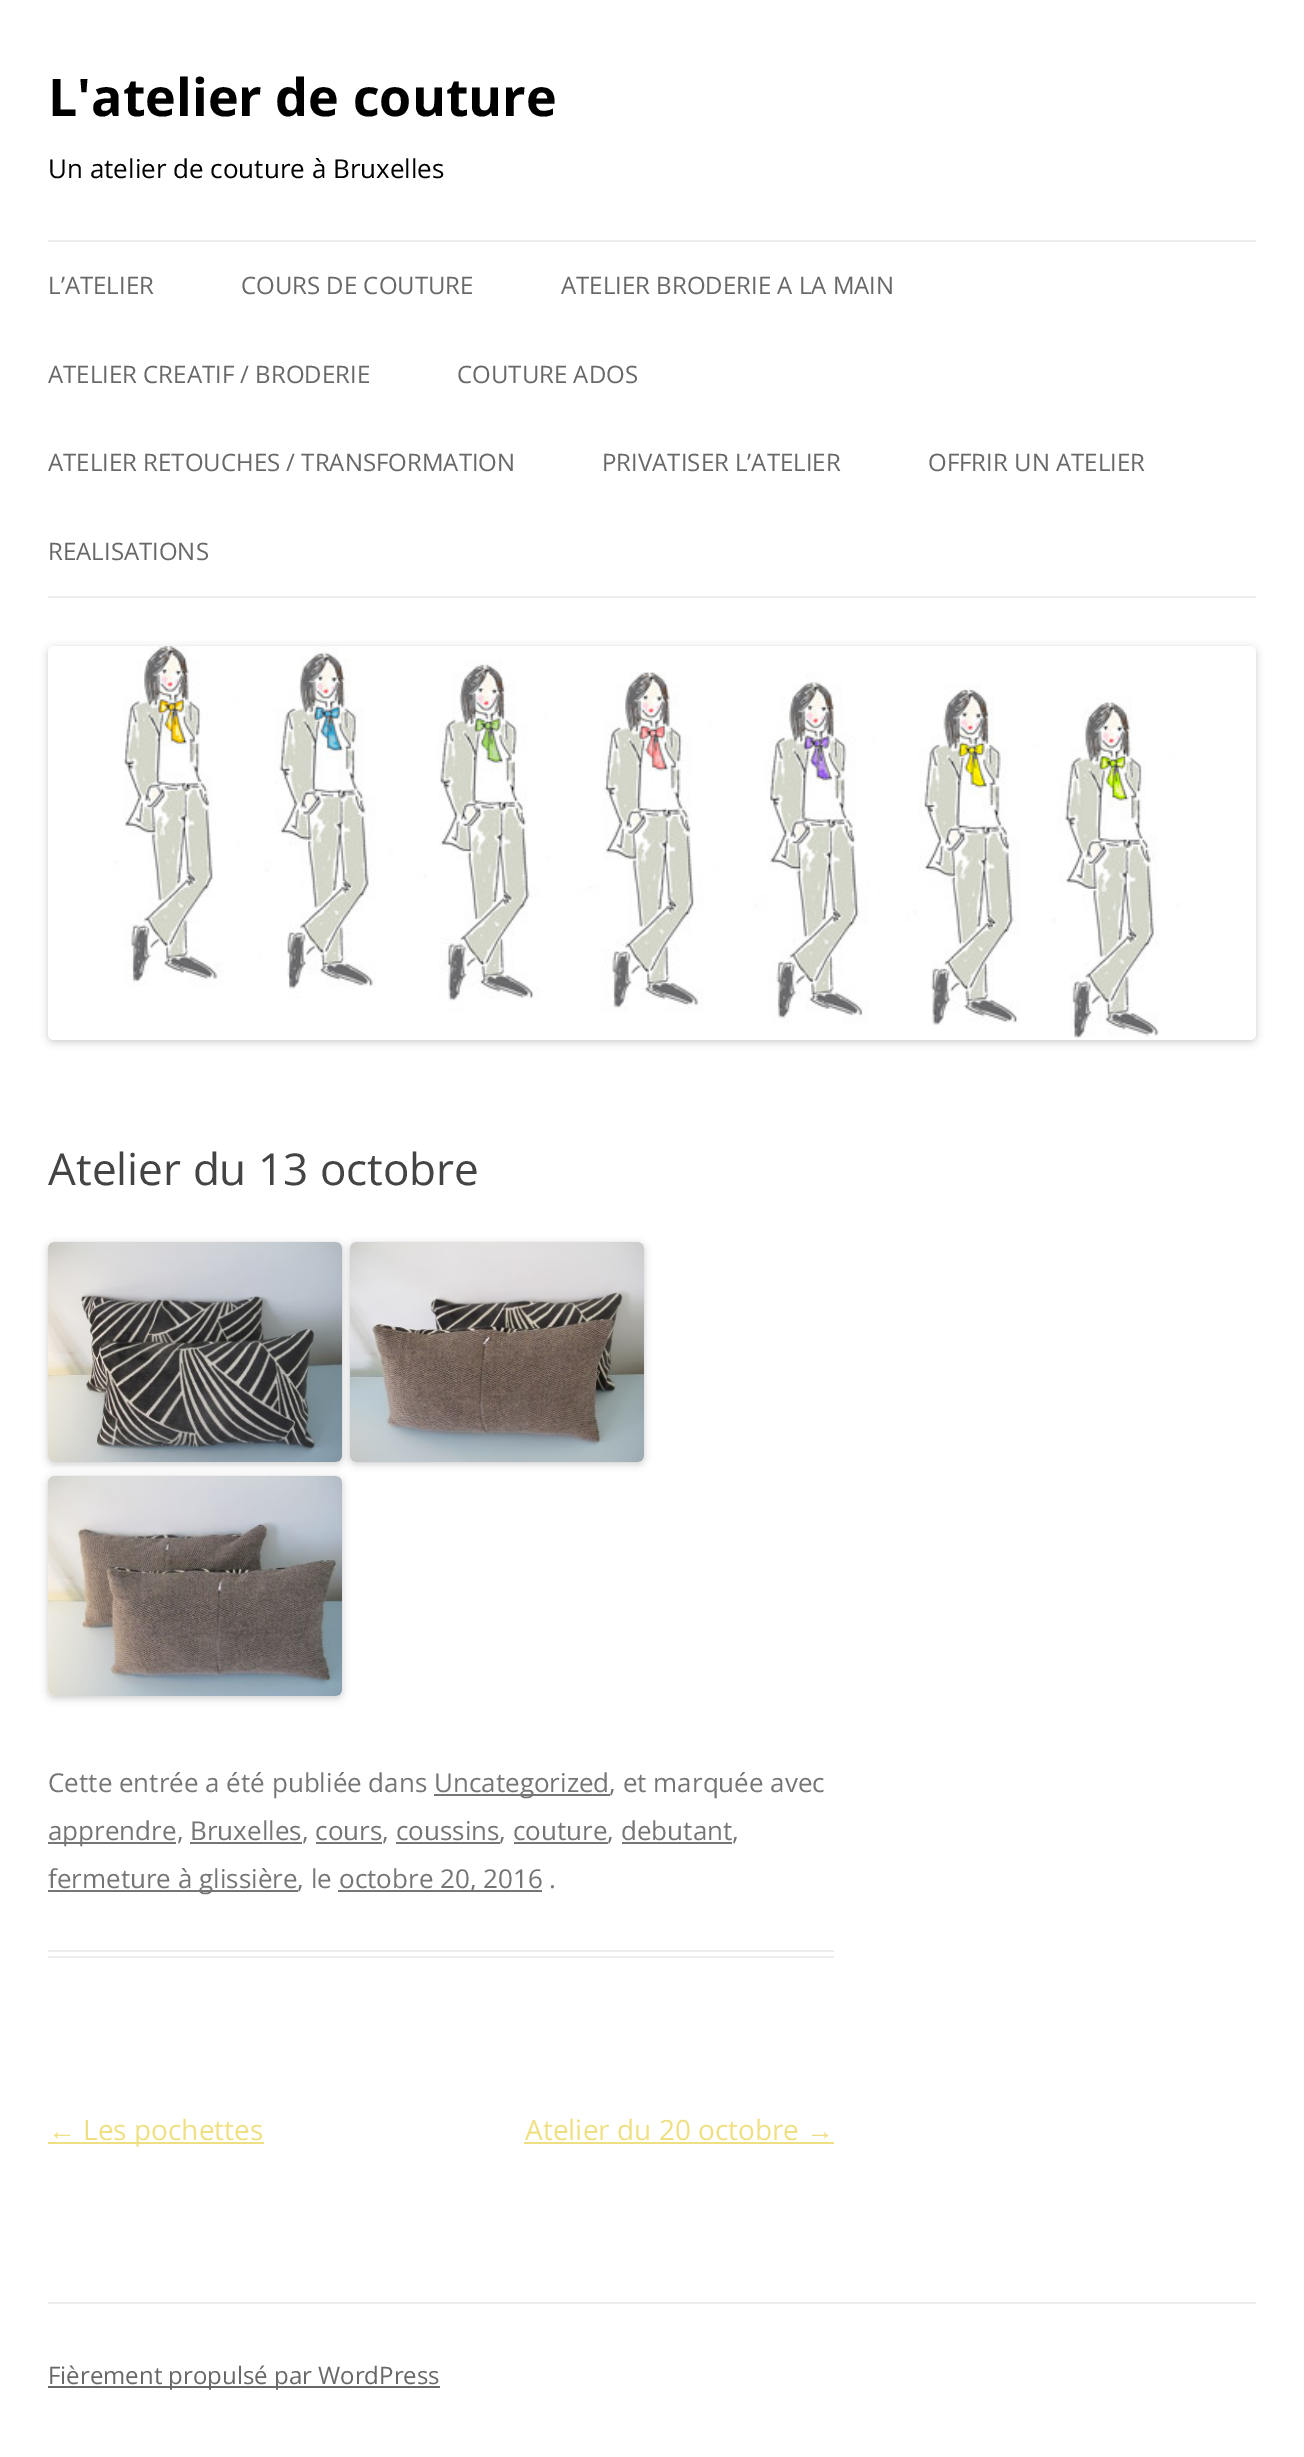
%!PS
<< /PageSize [1304 2457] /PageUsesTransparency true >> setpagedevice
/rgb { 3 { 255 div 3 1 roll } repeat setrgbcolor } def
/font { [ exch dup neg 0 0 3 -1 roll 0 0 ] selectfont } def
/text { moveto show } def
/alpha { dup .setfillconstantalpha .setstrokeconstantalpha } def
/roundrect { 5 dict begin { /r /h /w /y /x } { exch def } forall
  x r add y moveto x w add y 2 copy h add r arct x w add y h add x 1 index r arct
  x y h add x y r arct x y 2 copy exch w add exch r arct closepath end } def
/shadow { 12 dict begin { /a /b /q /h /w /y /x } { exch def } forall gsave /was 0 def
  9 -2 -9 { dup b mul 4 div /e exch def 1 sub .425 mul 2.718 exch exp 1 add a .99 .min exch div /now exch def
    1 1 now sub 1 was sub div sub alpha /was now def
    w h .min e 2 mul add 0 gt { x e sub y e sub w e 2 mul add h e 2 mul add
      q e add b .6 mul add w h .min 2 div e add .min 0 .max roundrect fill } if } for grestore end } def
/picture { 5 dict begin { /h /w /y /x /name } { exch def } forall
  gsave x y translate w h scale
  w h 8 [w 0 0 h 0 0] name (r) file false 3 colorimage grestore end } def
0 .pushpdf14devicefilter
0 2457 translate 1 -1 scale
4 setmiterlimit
255 255 255 rgb
0 0 1304 2457 rectfill
237 237 237 rgb
48 240 1208 2 rectfill
48 596 1208 2 rectfill
0 0 0 rgb
48 648 1208 394 6 4 0.2 shadow
(img_01.rgb) 48 646 1208 394 picture
237 237 237 rgb
48 1950 786 2 rectfill
48 1956 786 2 rectfill
0 0 0 rgb
48 1244 294 220 6 4 0.2 shadow
(img_02.rgb) 48 1242 294 220 picture
350 1244 294 220 6 4 0.2 shadow
(img_03.rgb) 350 1242 294 220 picture
48 1478 294 220 6 4 0.2 shadow
(img_04.rgb) 48 1476 294 220 picture
117 117 117 rgb
434 1794 176 2 rectfill
48 1842 128 2 rectfill
190 1842 112 2 rectfill
316 1842 66 2 rectfill
396 1842 104 2 rectfill
514 1842 94 2 rectfill
622 1842 110 2 rectfill
48 1890 250 2 rectfill
338 1890 204 2 rectfill
239 223 131 rgb
48 2142 216 2 rectfill
524 2142 310 2 rectfill
237 237 237 rgb
48 2302 1208 2 rectfill
104 104 104 rgb
48 2386 392 2 rectfill
/OpenSans-Bold 52 font
0 0 0 rgb
(L'atelier de couture) 48 116 text
/OpenSans-Regular 26 font
(Un atelier de couture à Bruxelles) 48 178 text
/OpenSans-Regular 24 font
104 104 104 rgb
(L’ATELIER) 48 294 text
(COURS DE COUTURE) 241 294 text
(ATELIER BRODERIE A LA MAIN) 561 294 text
(ATELIER CREATIF / BRODERIE) 48 383 text
(COUTURE ADOS) 457 383 text
(ATELIER RETOUCHES / TRANSFORMATION) 48 471 text
(PRIVATISER L’ATELIER) 602 471 text
(OFFRIR UN ATELIER) 928 471 text
(REALISATIONS) 48 560 text
/OpenSans-Regular 44 font
68 68 68 rgb
(Atelier du 13 octobre) 48 1185 text
/OpenSans-Regular 26 font
117 117 117 rgb
(Cette entrée a été publiée dans) 48 1792 text
(Uncategorized, et marquée avec) 434 1792 text
(apprendre, Bruxelles, cours, coussins, couture, debutant,) 48 1840 text
(fermeture à glissière, le) 48 1888 text
(octobre 20, 2016 .) 339 1888 text
/LiberationSans-Regular 28 font
239 223 131 rgb
(←) 48 2140 text
/OpenSans-Regular 28 font
(Les pochettes) 83 2140 text
(Atelier du 20 octobre) 525 2140 text
/LiberationSans-Regular 28 font
(→) 806 2140 text
/OpenSans-Regular 24 font
104 104 104 rgb
(Fièrement propulsé par WordPress) 48 2384 text
.poppdf14devicefilter showpage
